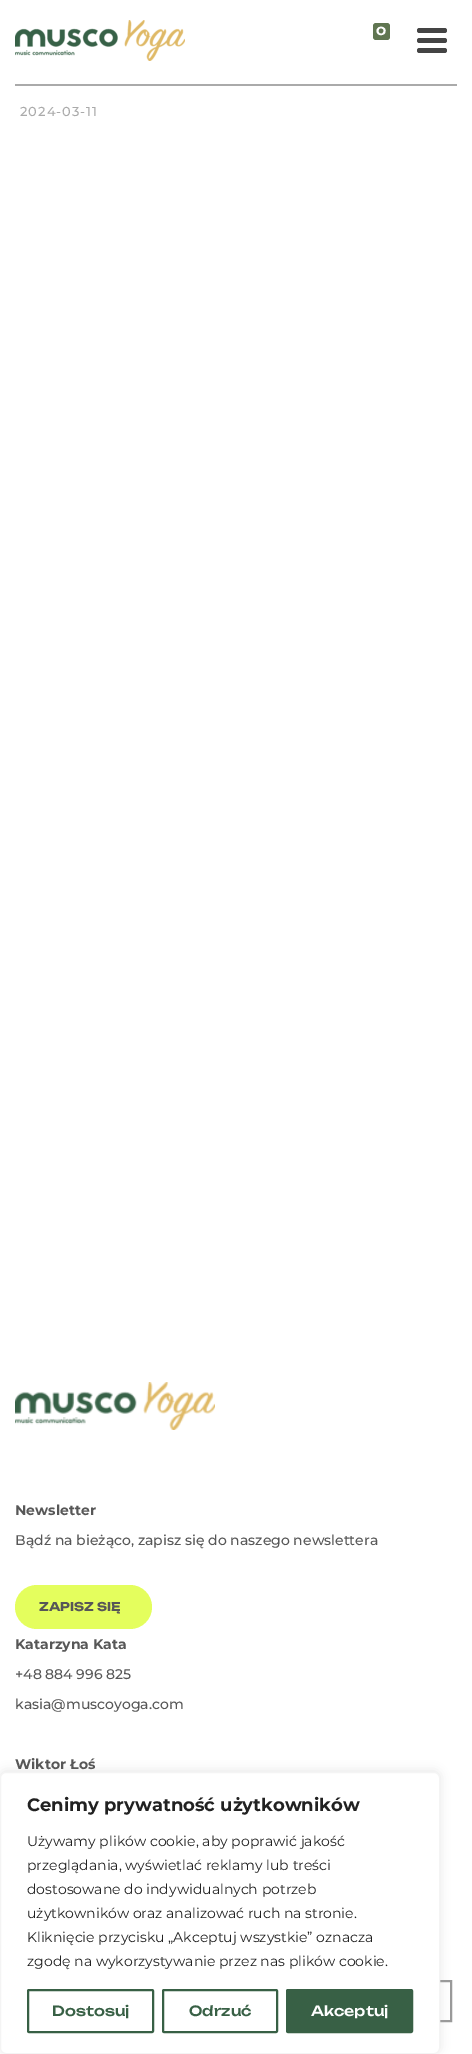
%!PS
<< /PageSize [472 2054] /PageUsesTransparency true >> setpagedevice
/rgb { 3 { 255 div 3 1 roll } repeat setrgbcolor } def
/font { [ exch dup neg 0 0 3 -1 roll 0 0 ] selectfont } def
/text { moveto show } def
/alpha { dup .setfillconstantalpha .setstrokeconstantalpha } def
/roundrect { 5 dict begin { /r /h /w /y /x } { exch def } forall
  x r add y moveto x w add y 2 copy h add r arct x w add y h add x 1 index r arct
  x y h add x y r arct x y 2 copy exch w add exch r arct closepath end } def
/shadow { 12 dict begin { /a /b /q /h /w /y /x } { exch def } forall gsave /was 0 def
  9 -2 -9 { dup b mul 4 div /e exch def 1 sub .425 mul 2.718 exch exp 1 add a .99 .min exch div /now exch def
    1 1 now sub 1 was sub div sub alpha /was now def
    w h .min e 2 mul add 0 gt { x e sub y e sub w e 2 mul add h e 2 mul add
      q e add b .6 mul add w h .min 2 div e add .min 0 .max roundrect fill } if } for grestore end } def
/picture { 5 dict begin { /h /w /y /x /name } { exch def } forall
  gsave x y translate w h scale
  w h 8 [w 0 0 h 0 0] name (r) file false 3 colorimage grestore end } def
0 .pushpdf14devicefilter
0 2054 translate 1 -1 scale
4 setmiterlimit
255 255 255 rgb
0 0 472 2054 rectfill
(img_01.rgb) 15 20 170 41 picture
96 118 81 rgb
373 23 17 17 3 roundrect fill
68 68 68 rgb
417 28 30 5 2.5 roundrect fill
417 38 30 5 2.5 roundrect fill
417 48 30 5 2.5 roundrect fill
170 170 170 rgb
15 84 442 2 rectfill
(img_02.rgb) 15 1382 200 48 picture
228 254 93 rgb
15 1585 137 44 22 roundrect fill
153 153 153 rgb
2 setlinewidth
411 1981 40 40 rectstroke
172 171 171 rgb
0 1771 440 282 6 5 0.3 shadow
255 255 255 rgb
0.5 1772.5 439 281 5.5 roundrect gsave fill grestore
244 244 244 rgb
1 setlinewidth
stroke
56 96 69 rgb
2 setlinewidth
28 1990 125 42 1 roundrect stroke
163 1990 114 42 1 roundrect stroke
287 1990 125 42 1 roundrect gsave fill grestore
stroke
/Unbounded-Bold 11 font
255 255 255 rgb
(0) 376 35 text
/Montserrat-Medium 13 font
170 170 170 rgb
20 116 moveto 1 0 (2024-03-11) ashow
/Montserrat-Bold 14 font
87 87 87 rgb
(Newsletter) 15 1515 text
/Montserrat-Medium 14 font
(Bądź na bieżąco, zapisz się do naszego newslettera) 15 1545 text
/Unbounded-Bold 12 font
(ZAPISZ SIĘ) 39 1611 text
/Montserrat-Bold 14 font
(Katarzyna Kata) 15 1649 text
/Montserrat-Medium 14 font
(+48 884 996 825) 15 1679 text
(kasia@muscoyoga.com) 15 1709 text
/Montserrat-Bold 14 font
(Wiktor Łoś) 15 1769 text
/Montserrat-Bold 18 font
33 33 33 rgb
(Cenimy prywatność użytkowników) 27 1811 text
/Montserrat-Regular 14 font
(Używamy plików cookie, aby poprawić jakość) 27 1846 text
(przeglądania, wyświetlać reklamy lub treści) 27 1870 text
(dostosowane do indywidualnych potrzeb) 27 1894 text
(użytkowników oraz analizować ruch na stronie.) 27 1918 text
(Kliknięcie przycisku „Akceptuj wszystkie” oznacza) 27 1942 text
(zgodę na wykorzystywanie przez nas plików cookie.) 27 1966 text
/Unbounded-Medium 14 font
56 96 69 rgb
(Dostosuj) 52 2016 text
(Odrzuć) 189 2016 text
255 255 255 rgb
(Akceptuj) 311 2016 text
.poppdf14devicefilter showpage
